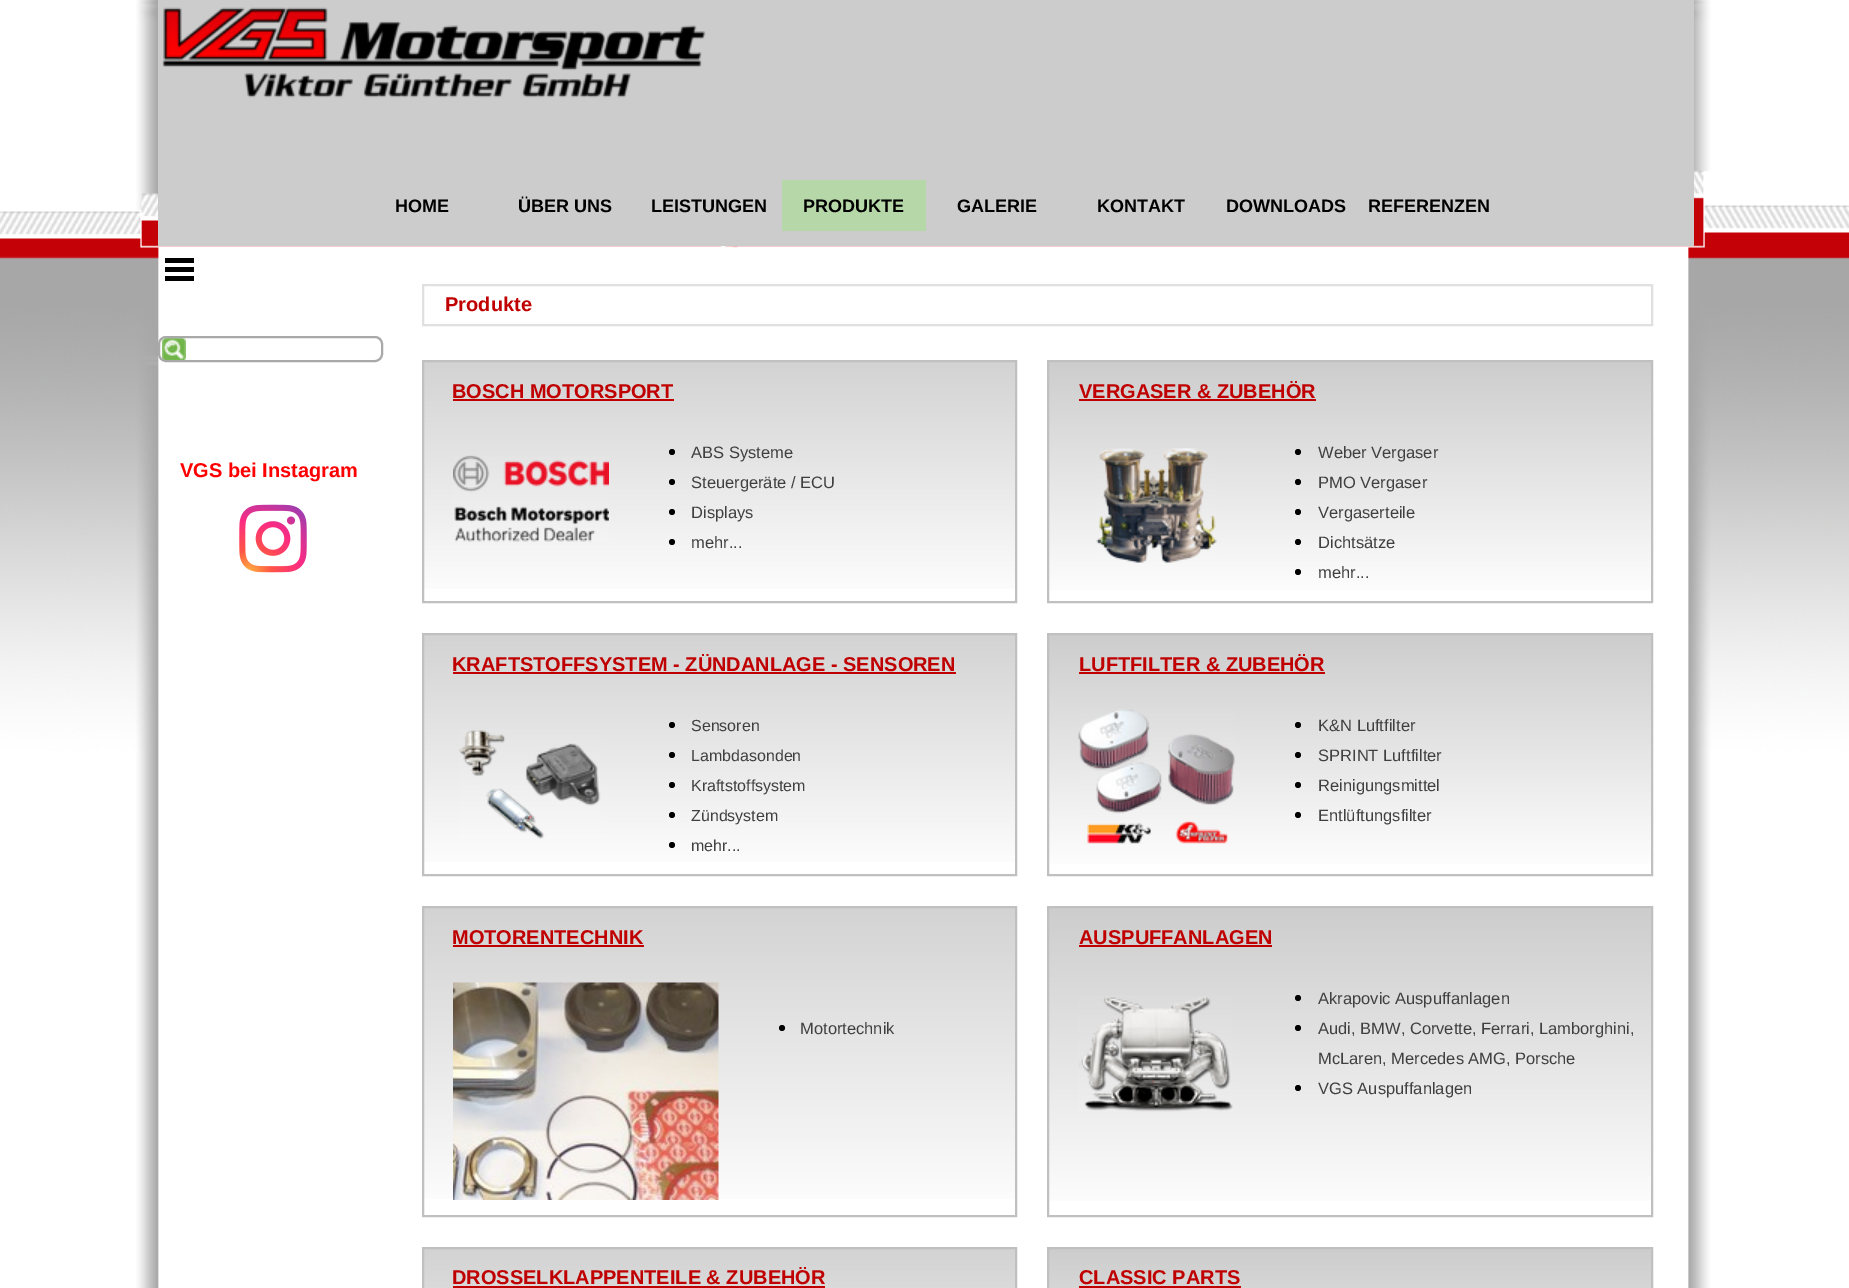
%!PS
<< /PageSize [1849 1288] >> setpagedevice
/rgb { 3 { 255 div 3 1 roll } repeat setrgbcolor } def
/font { [ exch dup neg 0 0 3 -1 roll 0 0 ] selectfont } def
/text { moveto show } def
/circle { newpath 0 360 arc closepath } def
/roundrect { 5 dict begin { /r /h /w /y /x } { exch def } forall
  x r add y moveto x w add y 2 copy h add r arct x w add y h add x 1 index r arct
  x y h add x y r arct x y 2 copy exch w add exch r arct closepath end } def
/picture { 5 dict begin { /h /w /y /x /name } { exch def } forall
  gsave x y translate w h scale
  w h 8 [w 0 0 h 0 0] name (r) file false 3 colorimage grestore end } def
0 1288 translate 1 -1 scale
4 setmiterlimit
255 255 255 rgb
0 0 1849 1288 rectfill
(img_01.rgb) 0 0 1849 1288 picture
204 204 204 rgb
158 0 1536 246 rectfill
(img_02.rgb) 162 7 544 91 picture
182 215 168 rgb
782 180 144 51 rectfill
0 0 0 rgb
165 258 29 5 rectfill
165 267 29 5 rectfill
165 276 29 5 rectfill
255 255 255 rgb
158 336 225 26 8 roundrect fill
(img_03.rgb) 162 338 24 24 picture
169 169 169 rgb
2 setlinewidth
159 337 223 24 7 roundrect stroke
(img_04.rgb) 239 504 68 69 picture
224 224 224 rgb
423 285 1229 40 rectstroke
gsave 424 362 moveto 591 0 rlineto 0 227 rlineto -591 0 rlineto closepath clip newpath
<< /ShadingType 2 /ColorSpace /DeviceRGB /Coords [719 360 719 603] /Extend [true true] /Function << /FunctionType 2 /Domain [0 1] /C0 [0.827 0.827 0.827] /C1 [1 1 1] /N 1 >> >> shfill grestore
192 192 192 rgb
423 361 593 241 rectstroke
192 0 0 rgb
453 399 221 2 rectfill
(img_05.rgb) 453 455 156 87 picture
0 0 0 rgb
672 452 3 circle fill
672 482 3 circle fill
672 512 3 circle fill
672 542 3 circle fill
gsave 1049 362 moveto 602 0 rlineto 0 229 rlineto -602 0 rlineto closepath clip newpath
<< /ShadingType 2 /ColorSpace /DeviceRGB /Coords [1350 360 1350 603] /Extend [true true] /Function << /FunctionType 2 /Domain [0 1] /C0 [0.804 0.804 0.804] /C1 [1 1 1] /N 1 >> >> shfill grestore
192 192 192 rgb
1048 361 604 241 rectstroke
192 0 0 rgb
1079 399 237 2 rectfill
(img_06.rgb) 1096 448 121 115 picture
0 0 0 rgb
1298 452 3 circle fill
1298 482 3 circle fill
1298 512 3 circle fill
1298 542 3 circle fill
1298 572 3 circle fill
gsave 424 635 moveto 591 0 rlineto 0 227 rlineto -591 0 rlineto closepath clip newpath
<< /ShadingType 2 /ColorSpace /DeviceRGB /Coords [719 633 719 876] /Extend [true true] /Function << /FunctionType 2 /Domain [0 1] /C0 [0.827 0.827 0.827] /C1 [1 1 1] /N 1 >> >> shfill grestore
192 192 192 rgb
423 634 593 241 rectstroke
192 0 0 rgb
453 672 503 2 rectfill
(img_07.rgb) 459 730 142 109 picture
0 0 0 rgb
672 725 3 circle fill
672 755 3 circle fill
672 785 3 circle fill
672 815 3 circle fill
672 845 3 circle fill
gsave 1049 635 moveto 602 0 rlineto 0 229 rlineto -602 0 rlineto closepath clip newpath
<< /ShadingType 2 /ColorSpace /DeviceRGB /Coords [1350 633 1350 876] /Extend [true true] /Function << /FunctionType 2 /Domain [0 1] /C0 [0.804 0.804 0.804] /C1 [1 1 1] /N 1 >> >> shfill grestore
192 192 192 rgb
1048 634 604 241 rectstroke
192 0 0 rgb
1079 672 246 2 rectfill
(img_08.rgb) 1078 709 157 135 picture
0 0 0 rgb
1298 725 3 circle fill
1298 755 3 circle fill
1298 785 3 circle fill
1298 815 3 circle fill
gsave 424 908 moveto 591 0 rlineto 0 291 rlineto -591 0 rlineto closepath clip newpath
<< /ShadingType 2 /ColorSpace /DeviceRGB /Coords [719 906 719 1217] /Extend [true true] /Function << /FunctionType 2 /Domain [0 1] /C0 [0.827 0.827 0.827] /C1 [1 1 1] /N 1 >> >> shfill grestore
192 192 192 rgb
423 907 593 309 rectstroke
192 0 0 rgb
453 945 191 2 rectfill
(img_09.rgb) 453 982 266 218 picture
0 0 0 rgb
782 1028 3 circle fill
gsave 1049 908 moveto 602 0 rlineto 0 293 rlineto -602 0 rlineto closepath clip newpath
<< /ShadingType 2 /ColorSpace /DeviceRGB /Coords [1350 906 1350 1217] /Extend [true true] /Function << /FunctionType 2 /Domain [0 1] /C0 [0.804 0.804 0.804] /C1 [1 1 1] /N 1 >> >> shfill grestore
192 192 192 rgb
1048 907 604 309 rectstroke
192 0 0 rgb
1079 945 193 2 rectfill
(img_10.rgb) 1078 996 155 116 picture
0 0 0 rgb
1298 998 3 circle fill
1298 1028 3 circle fill
1298 1088 3 circle fill
gsave 424 1249 moveto 591 0 rlineto 0 39 rlineto -591 0 rlineto closepath clip newpath
<< /ShadingType 2 /ColorSpace /DeviceRGB /Coords [719 1247 719 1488] /Extend [true true] /Function << /FunctionType 2 /Domain [0 1] /C0 [0.827 0.827 0.827] /C1 [1 1 1] /N 1 >> >> shfill grestore
192 192 192 rgb
423 1248 593 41 rectstroke
192 0 0 rgb
453 1286 372 2 rectfill
gsave 1049 1249 moveto 602 0 rlineto 0 39 rlineto -602 0 rlineto closepath clip newpath
<< /ShadingType 2 /ColorSpace /DeviceRGB /Coords [1350 1247 1350 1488] /Extend [true true] /Function << /FunctionType 2 /Domain [0 1] /C0 [0.804 0.804 0.804] /C1 [1 1 1] /N 1 >> >> shfill grestore
192 192 192 rgb
1048 1248 604 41 rectstroke
192 0 0 rgb
1079 1286 162 2 rectfill
/LiberationSans-Bold 18 font
0 0 0 rgb
(HOME) 395 212 text
(ÜBER UNS) 518 212 text
(LEISTUNGEN) 651 212 text
(PRODUKTE) 803 212 text
(GALERIE) 957 212 text
(KONTAKT) 1097 212 text
(DOWNLOADS) 1226 212 text
(REFERENZEN) 1368 212 text
/LiberationSans-Bold 20 font
255 0 0 rgb
(VGS bei Instagram) 180 477 text
192 0 0 rgb
(Produkte) 445 311 text
(BOSCH MOTORSPORT) 452 398 text
/LiberationSans-Regular 16.5 font
64 64 64 rgb
(ABS Systeme) 691 458 text
(Steuergeräte / ECU) 691 488 text
(Displays) 691 518 text
(mehr...) 691 548 text
/LiberationSans-Bold 20 font
192 0 0 rgb
(VERGASER & ZUBEHÖR) 1079 398 text
/LiberationSans-Regular 16.5 font
64 64 64 rgb
(Weber Vergaser) 1318 458 text
(PMO Vergaser) 1318 488 text
(Vergaserteile) 1318 518 text
(Dichtsätze) 1318 548 text
(mehr...) 1318 578 text
/LiberationSans-Bold 20 font
192 0 0 rgb
(KRAFTSTOFFSYSTEM - ZÜNDANLAGE - SENSOREN) 452 671 text
/LiberationSans-Regular 16 font
64 64 64 rgb
(Sensoren) 691 731 text
(Lambdasonden) 691 761 text
(Kraftstoffsystem) 691 791 text
(Zündsystem) 691 821 text
(mehr...) 691 851 text
/LiberationSans-Bold 20 font
192 0 0 rgb
(LUFTFILTER & ZUBEHÖR) 1079 671 text
/LiberationSans-Regular 16.5 font
64 64 64 rgb
(K&N Luftfilter) 1318 731 text
(SPRINT Luftfilter) 1318 761 text
(Reinigungsmittel) 1318 791 text
(Entlüftungsfilter) 1318 821 text
/LiberationSans-Bold 20 font
192 0 0 rgb
(MOTORENTECHNIK) 452 944 text
/LiberationSans-Regular 16.5 font
64 64 64 rgb
(Motortechnik) 800 1034 text
/LiberationSans-Bold 20 font
192 0 0 rgb
(AUSPUFFANLAGEN) 1079 944 text
/LiberationSans-Regular 16.5 font
64 64 64 rgb
(Akrapovic Auspuffanlagen) 1318 1004 text
(Audi, BMW, Corvette, Ferrari, Lamborghini,) 1318 1034 text
(McLaren, Mercedes AMG, Porsche) 1318 1064 text
(VGS Auspuffanlagen) 1318 1094 text
/LiberationSans-Bold 20 font
192 0 0 rgb
(DROSSELKLAPPENTEILE & ZUBEHÖR) 452 1284 text
(CLASSIC PARTS) 1079 1284 text
showpage
